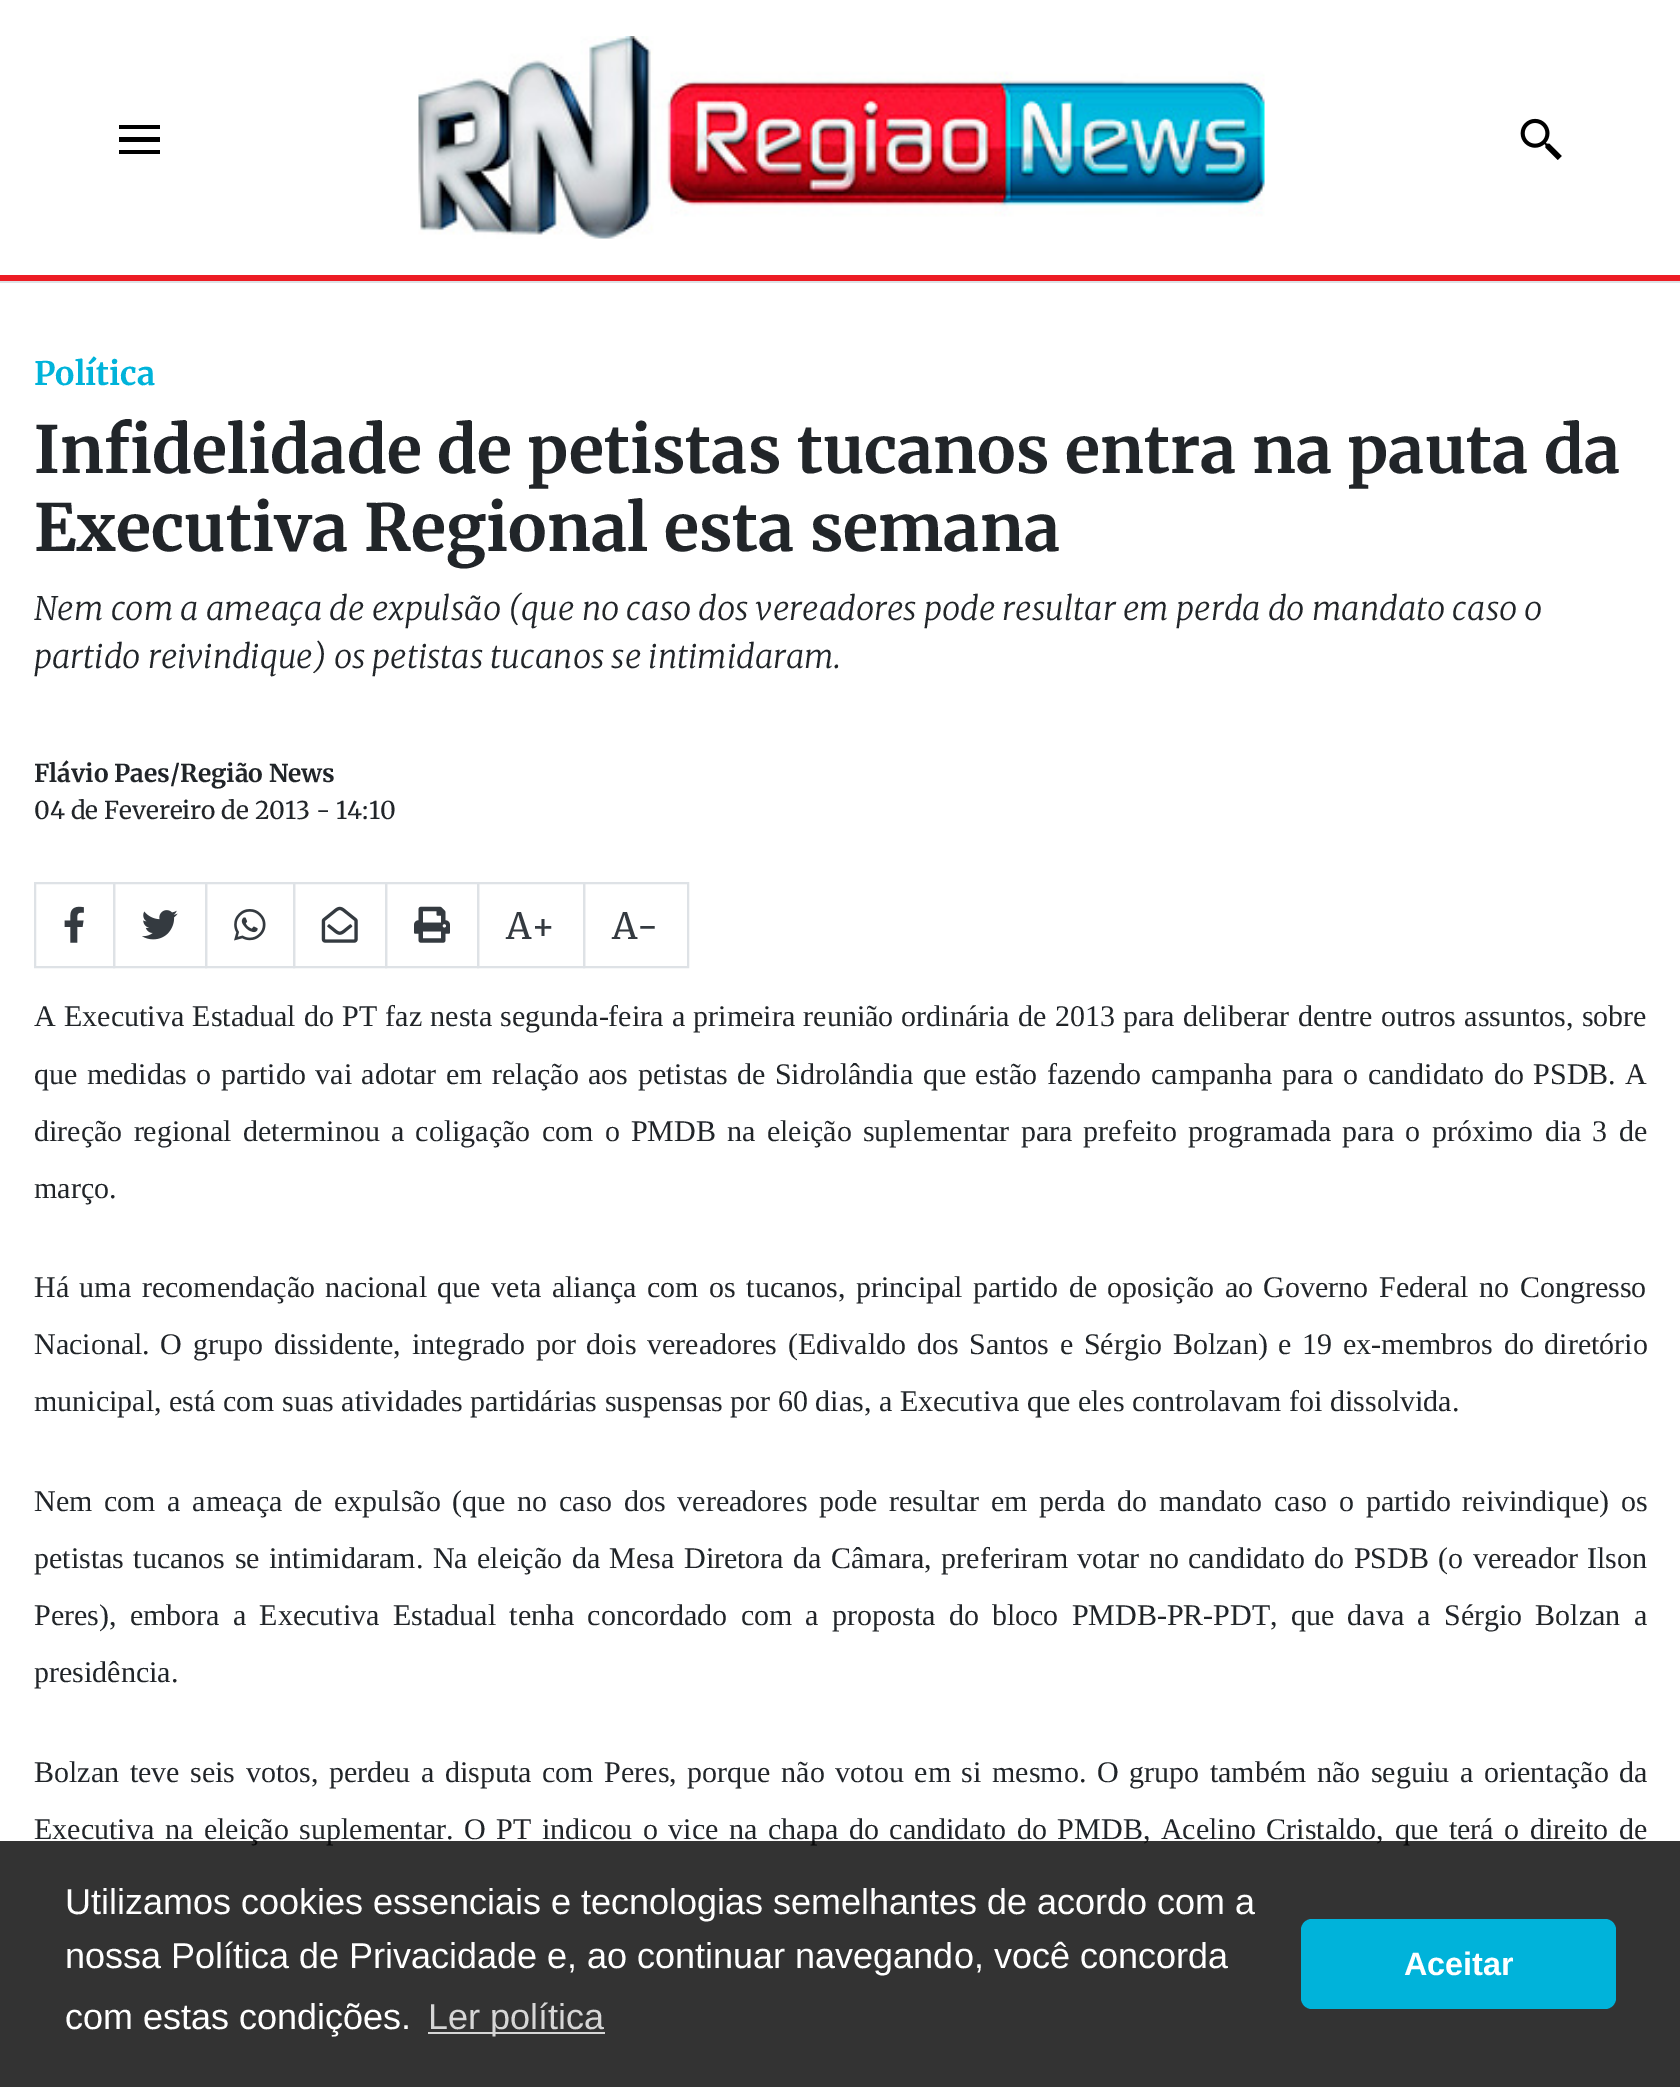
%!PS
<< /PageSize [1680 2087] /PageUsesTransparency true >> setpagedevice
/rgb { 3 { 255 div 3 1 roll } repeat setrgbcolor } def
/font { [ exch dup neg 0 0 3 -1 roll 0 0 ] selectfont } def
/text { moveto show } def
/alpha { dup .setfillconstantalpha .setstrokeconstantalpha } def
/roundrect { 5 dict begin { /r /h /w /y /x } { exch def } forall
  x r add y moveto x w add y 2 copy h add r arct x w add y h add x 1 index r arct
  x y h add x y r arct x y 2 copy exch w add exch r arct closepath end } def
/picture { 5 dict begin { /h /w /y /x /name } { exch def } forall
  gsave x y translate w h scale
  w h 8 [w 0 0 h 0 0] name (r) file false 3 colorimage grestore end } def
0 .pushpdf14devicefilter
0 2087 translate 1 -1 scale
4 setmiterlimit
255 255 255 rgb
0 0 1680 2087 rectfill
237 28 36 rgb
0 275 1680 6 rectfill
0 0 0 rgb
119 125 moveto 0 4 rlineto 41 0 rlineto 0 -4 rlineto closepath 119 137 moveto 0 5 rlineto 41 0 rlineto 0 -5 rlineto closepath 119 150 moveto 0 4 rlineto 41 0 rlineto 0 -4 rlineto closepath fill
(img_01.rgb) 418 36 847 203 picture
(img_02.rgb) 1520 118 42 42 picture
222 226 230 rgb
0 281 1680 2 rectfill
2 setlinewidth
35 883 79 84 rectstroke
(img_03.rgb) 64 906 20 37 picture
114 883 92 84 rectstroke
(img_04.rgb) 142 910 36 30 picture
206 883 88 84 rectstroke
(img_05.rgb) 234 909 32 32 picture
294 883 92 84 rectstroke
(img_06.rgb) 321 906 37 37 picture
386 883 92 84 rectstroke
(img_07.rgb) 414 906 36 37 picture
478 883 106 84 rectstroke
584 883 104 84 rectstroke
/Merriweather-Bold 32.4 font
0 179 218 rgb
(Política) 34 385 text
/Merriweather-Bold 64.8 font
33 37 41 rgb
(Infidelidade de petistas tucanos entra na pauta da) 34 473 text
(Executiva Regional esta semana) 34 551 text
/Merriweather-LightItalic 32.4 font
(Nem com a ameaça de expulsão \(que no caso dos vereadores pode resultar em perda do mandato caso o) 34 620 text
(partido reivindique\) os petistas tucanos se intimidaram.) 34 668 text
/Merriweather-Bold 24.5 font
(Flávio Paes/Região News) 34 782 text
/Merriweather-Regular 24.5 font
(04 de Fevereiro de 2013 - 14:10) 34 819 text
/Merriweather-Regular 36 font
52 58 64 rgb
(A+) 506 939 text
(A-) 612 939 text
/LiberationSerif-Regular 30 font
33 37 41 rgb
34 1026 moveto 0.8 0 32 (A Executiva Estadual do PT faz nesta segunda-feira a primeira reunião ordinária de 2013 para deliberar dentre outros assuntos, sobre) widthshow
34 1084 moveto 2 0 32 (que medidas o partido vai adotar em relação aos petistas de Sidrolândia que estão fazendo campanha para o candidato do PSDB. A) widthshow
34 1141 moveto 3.75 0 32 (direção regional determinou a coligação com o PMDB na eleição suplementar para prefeito programada para o próximo dia 3 de) widthshow
(março.) 34 1198 text
34 1297 moveto 3 0 32 (Há uma recomendação nacional que veta aliança com os tucanos, principal partido de oposição ao Governo Federal no Congresso) widthshow
34 1354 moveto 3.2 0 32 (Nacional. O grupo dissidente, integrado por dois vereadores \(Edivaldo dos Santos e Sérgio Bolzan\) e 19 ex-membros do diretório) widthshow
(municipal, está com suas atividades partidárias suspensas por 60 dias, a Executiva que eles controlavam foi dissolvida.) 34 1411 text
34 1511 moveto 4.2 0 32 (Nem com a ameaça de expulsão \(que no caso dos vereadores pode resultar em perda do mandato caso o partido reivindique\) os) widthshow
34 1568 moveto 2 0 32 (petistas tucanos se intimidaram. Na eleição da Mesa Diretora da Câmara, preferiram votar no candidato do PSDB \(o vereador Ilson) widthshow
34 1625 moveto 5.75 0 32 (Peres\), embora a Executiva Estadual tenha concordado com a proposta do bloco PMDB-PR-PDT, que dava a Sérgio Bolzan a) widthshow
(presidência.) 34 1682 text
34 1782 moveto 3.1 0 32 (Bolzan teve seis votos, perdeu a disputa com Peres, porque não votou em si mesmo. O grupo também não seguiu a orientação da) widthshow
34 1839 moveto 3.2 0 32 (Executiva na eleição suplementar. O PT indicou o vice na chapa do candidato do PMDB, Acelino Cristaldo, que terá o direito de) widthshow
0.8 alpha
0 0 0 rgb
0 1841 1680 246 rectfill
/LiberationSans-Regular 36 font
1 alpha
255 255 255 rgb
(Utilizamos cookies essenciais e tecnologias semelhantes de acordo com a) 65 1914 text
(nossa Política de Privacidade e, ao continuar navegando, você concorda) 65 1968 text
(com estas condições.) 65 2029 text
214 214 214 rgb
428 2032 177 2 rectfill
(Ler política) 428 2029 text
0 179 218 rgb
1301 1919 315 90 11 roundrect fill
/LiberationSans-Bold 32.4 font
255 255 255 rgb
(Aceitar) 1404 1975 text
.poppdf14devicefilter showpage
